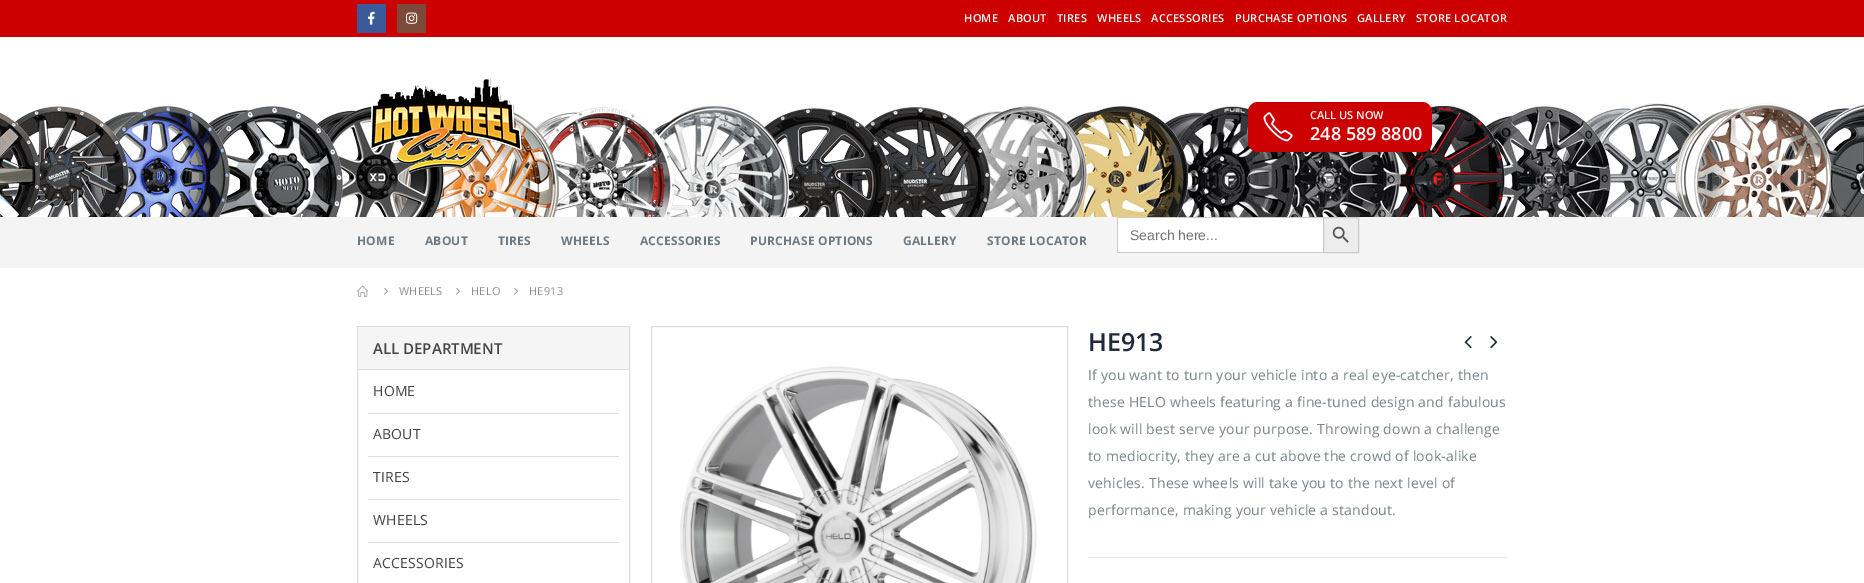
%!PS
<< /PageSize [1864 583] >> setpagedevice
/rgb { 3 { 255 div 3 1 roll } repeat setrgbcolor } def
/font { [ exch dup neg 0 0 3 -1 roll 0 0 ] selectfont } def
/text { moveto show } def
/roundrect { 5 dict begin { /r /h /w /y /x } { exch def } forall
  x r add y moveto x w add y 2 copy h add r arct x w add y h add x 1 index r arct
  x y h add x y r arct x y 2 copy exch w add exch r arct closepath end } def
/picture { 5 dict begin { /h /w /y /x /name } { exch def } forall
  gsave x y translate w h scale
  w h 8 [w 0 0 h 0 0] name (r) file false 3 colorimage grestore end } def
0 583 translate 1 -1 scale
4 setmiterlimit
255 255 255 rgb
0 0 1864 583 rectfill
204 0 0 rgb
0 0 1864 37 rectfill
59 90 154 rgb
357 4 29 29 rectfill
(img_01.rgb) 368 11 7 14 picture
124 74 58 rgb
397 4 29 29 rectfill
(img_02.rgb) 406 12 12 12 picture
(img_03.rgb) 0 103 1864 114 picture
(img_04.rgb) 371 79 151 95 picture
204 0 0 rgb
1248 102 184 50 10 roundrect fill
(img_05.rgb) 1263 112 30 30 picture
244 244 244 rgb
0 217 1864 51 rectfill
255 255 255 rgb
1118 218 205 34 rectfill
204 204 204 rgb
1117 217 206 1 rectfill
1117 252 206 1 rectfill
1117 217 1 36 rectfill
237 237 237 rgb
1323.5 217.5 moveto 35 0 rlineto 0 35 rlineto -35 0 rlineto closepath gsave fill grestore
204 204 204 rgb
stroke
(img_06.rgb) 1332 226 17 17 picture
(img_07.rgb) 357 285 12 12 picture
(img_08.rgb) 384 288 4 7 picture
(img_08.rgb) 456 288 4 7 picture
(img_08.rgb) 514 288 4 7 picture
221 221 221 rgb
357.5 326.5 272 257 rectstroke
245 245 245 rgb
358 327 271 42 rectfill
221 221 221 rgb
358 369 271 1 rectfill
368 413 251 1 rectfill
368 456 251 1 rectfill
368 499 251 1 rectfill
368 542 251 1 rectfill
651.5 326.5 416 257 rectstroke
(img_09.rgb) 680 366 357 217 picture
(img_10.rgb) 1464 336 8 13 picture
(img_11.rgb) 1490 336 8 13 picture
235 235 235 rgb
1088 557 419 1 rectfill
/OpenSans-SemiBold 11 font
255 255 255 rgb
964 22 moveto 0.25 0 (HOME) ashow
1008 22 moveto 0.25 0 (ABOUT) ashow
1057 22 moveto 0.25 0 (TIRES) ashow
1097 22 moveto 0.25 0 (WHEELS) ashow
1151 22 moveto 0.25 0 (ACCESSORIES) ashow
1235 22 moveto 0.25 0 (PURCHASE OPTIONS) ashow
1357 22 moveto 0.25 0 (GALLERY) ashow
1416 22 moveto 0.25 0 (STORE LOCATOR) ashow
(CALL US NOW) 1310 119 text
/OpenSans-SemiBold 18 font
(248 589 8800) 1310 140 text
/OpenSans-Bold 12 font
107 122 131 rgb
357 245 moveto 0.2 0 (HOME) ashow
425 245 moveto 0.2 0 (ABOUT) ashow
498 245 moveto 0.2 0 (TIRES) ashow
561 245 moveto 0.2 0 (WHEELS) ashow
640 245 moveto 0.2 0 (ACCESSORIES) ashow
750 245 moveto 0.2 0 (PURCHASE OPTIONS) ashow
903 245 moveto 0.2 0 (GALLERY) ashow
987 245 moveto 0.2 0 (STORE LOCATOR) ashow
/LiberationSans-Regular 14 font
117 117 117 rgb
(Search here...) 1130 240 text
/OpenSans-Regular 11 font
142 142 142 rgb
399 295 moveto 0.2 0 (WHEELS) ashow
471 295 moveto 0.2 0 (HELO) ashow
529 295 moveto 0.2 0 (HE913) ashow
/OpenSans-SemiBold 15 font
68 68 68 rgb
(ALL DEPARTMENT) 373 354 text
/OpenSans-Regular 14 font
373 396 moveto 0.2 0 (HOME) ashow
373 439 moveto 0.2 0 (ABOUT) ashow
373 482 moveto 0.2 0 (TIRES) ashow
373 525 moveto 0.2 0 (WHEELS) ashow
373 568 moveto 0.2 0 (ACCESSORIES) ashow
/OpenSans-SemiBold 25 font
33 41 60 rgb
(HE913) 1088 351 text
/OpenSans-Regular 14 font
123 133 138 rgb
1088 380 moveto 0.2 0 (If you want to turn your vehicle into a real eye-catcher, then) ashow
1088 407 moveto 0.2 0 (these HELO wheels featuring a fine-tuned design and fabulous) ashow
1088 434 moveto 0.2 0 (look will best serve your purpose. Throwing down a challenge) ashow
1088 461 moveto 0.2 0 (to mediocrity, they are a cut above the crowd of look-alike) ashow
1088 488 moveto 0.2 0 (vehicles. These wheels will take you to the next level of) ashow
1088 515 moveto 0.2 0 (performance, making your vehicle a standout.) ashow
showpage
